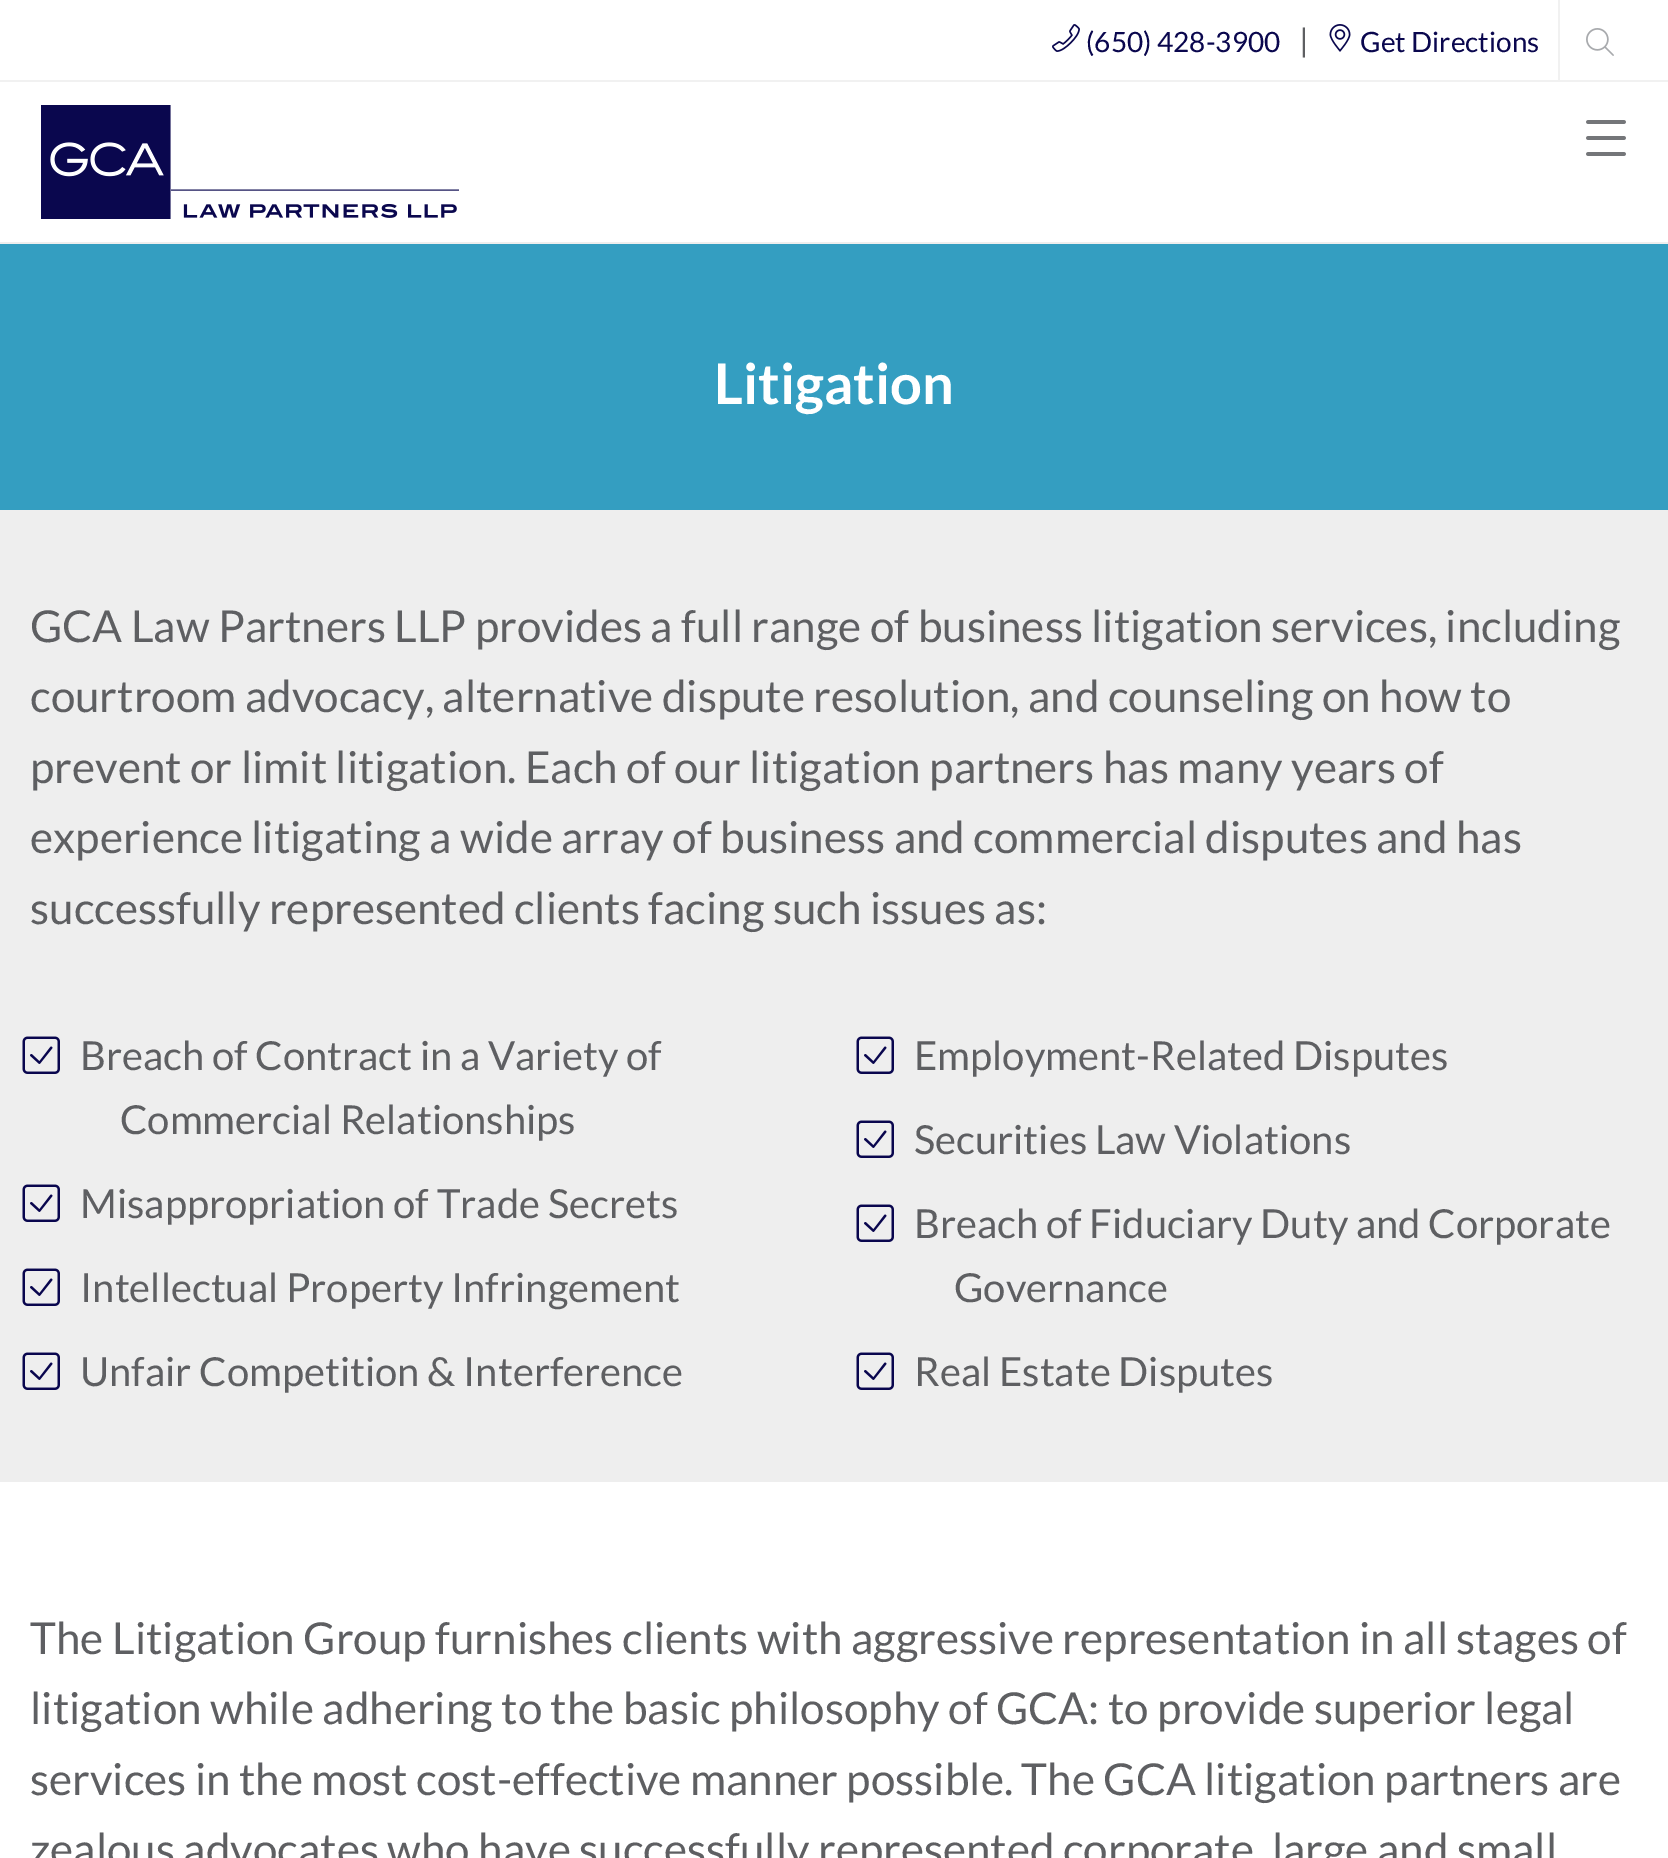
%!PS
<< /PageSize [1668 1858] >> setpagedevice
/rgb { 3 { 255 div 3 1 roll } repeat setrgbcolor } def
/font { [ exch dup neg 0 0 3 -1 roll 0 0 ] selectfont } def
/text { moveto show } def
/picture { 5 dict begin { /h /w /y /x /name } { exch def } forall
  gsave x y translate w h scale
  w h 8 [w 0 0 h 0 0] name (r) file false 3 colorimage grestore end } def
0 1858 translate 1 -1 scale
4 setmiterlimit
255 255 255 rgb
0 0 1668 1858 rectfill
241 241 241 rgb
0 80 1668 2 rectfill
(img_01.rgb) 1052 24 28 28 picture
(img_02.rgb) 1329 24 22 28 picture
1558 0 2 80 rectfill
(img_03.rgb) 1586 28 28 28 picture
238 238 238 rgb
0 242 1668 2 rectfill
(img_04.rgb) 41 105 418 114 picture
(img_05.rgb) 1586 120 40 36 picture
52 158 193 rgb
0 244 1668 266 rectfill
238 238 238 rgb
0 510 1668 972 rectfill
(img_06.rgb) 22 1036 38 38 picture
(img_06.rgb) 22 1184 38 38 picture
(img_06.rgb) 22 1268 38 38 picture
(img_06.rgb) 22 1352 38 38 picture
(img_06.rgb) 856 1036 38 38 picture
(img_06.rgb) 856 1120 38 38 picture
(img_06.rgb) 856 1204 38 38 picture
(img_06.rgb) 856 1352 38 38 picture
/Lato-Regular 28 font
10 7 78 rgb
(\(650\) 428-3900) 1086 52 text
/Lato-Regular 32 font
94 95 98 rgb
(|) 1299 52 text
/Lato-Regular 28 font
10 7 78 rgb
(Get Directions) 1360 52 text
/Lato-Bold 56 font
255 255 255 rgb
(Litigation) 714 404 text
/Lato-Regular 44 font
94 95 98 rgb
(GCA Law Partners LLP provides a full range of business litigation services, including) 30 642 text
(courtroom advocacy, alternative dispute resolution, and counseling on how to) 30 712 text
(prevent or limit litigation. Each of our litigation partners has many years of) 30 783 text
(experience litigating a wide array of business and commercial disputes and has) 30 853 text
(successfully represented clients facing such issues as:) 30 924 text
/Lato-Regular 40 font
(Breach of Contract in a Variety of) 80 1070 text
(Commercial Relationships) 120 1134 text
(Misappropriation of Trade Secrets) 80 1218 text
(Intellectual Property Infringement) 80 1302 text
(Unfair Competition & Interference) 80 1386 text
(Employment-Related Disputes) 914 1070 text
(Securities Law Violations) 914 1154 text
(Breach of Fiduciary Duty and Corporate) 914 1238 text
(Governance) 954 1302 text
(Real Estate Disputes) 914 1386 text
/Lato-Regular 44 font
(The Litigation Group furnishes clients with aggressive representation in all stages of) 30 1654 text
(litigation while adhering to the basic philosophy of GCA: to provide superior legal) 30 1724 text
(services in the most cost-effective manner possible. The GCA litigation partners are) 30 1795 text
(zealous advocates who have successfully represented corporate, large and small) 30 1865 text
showpage
